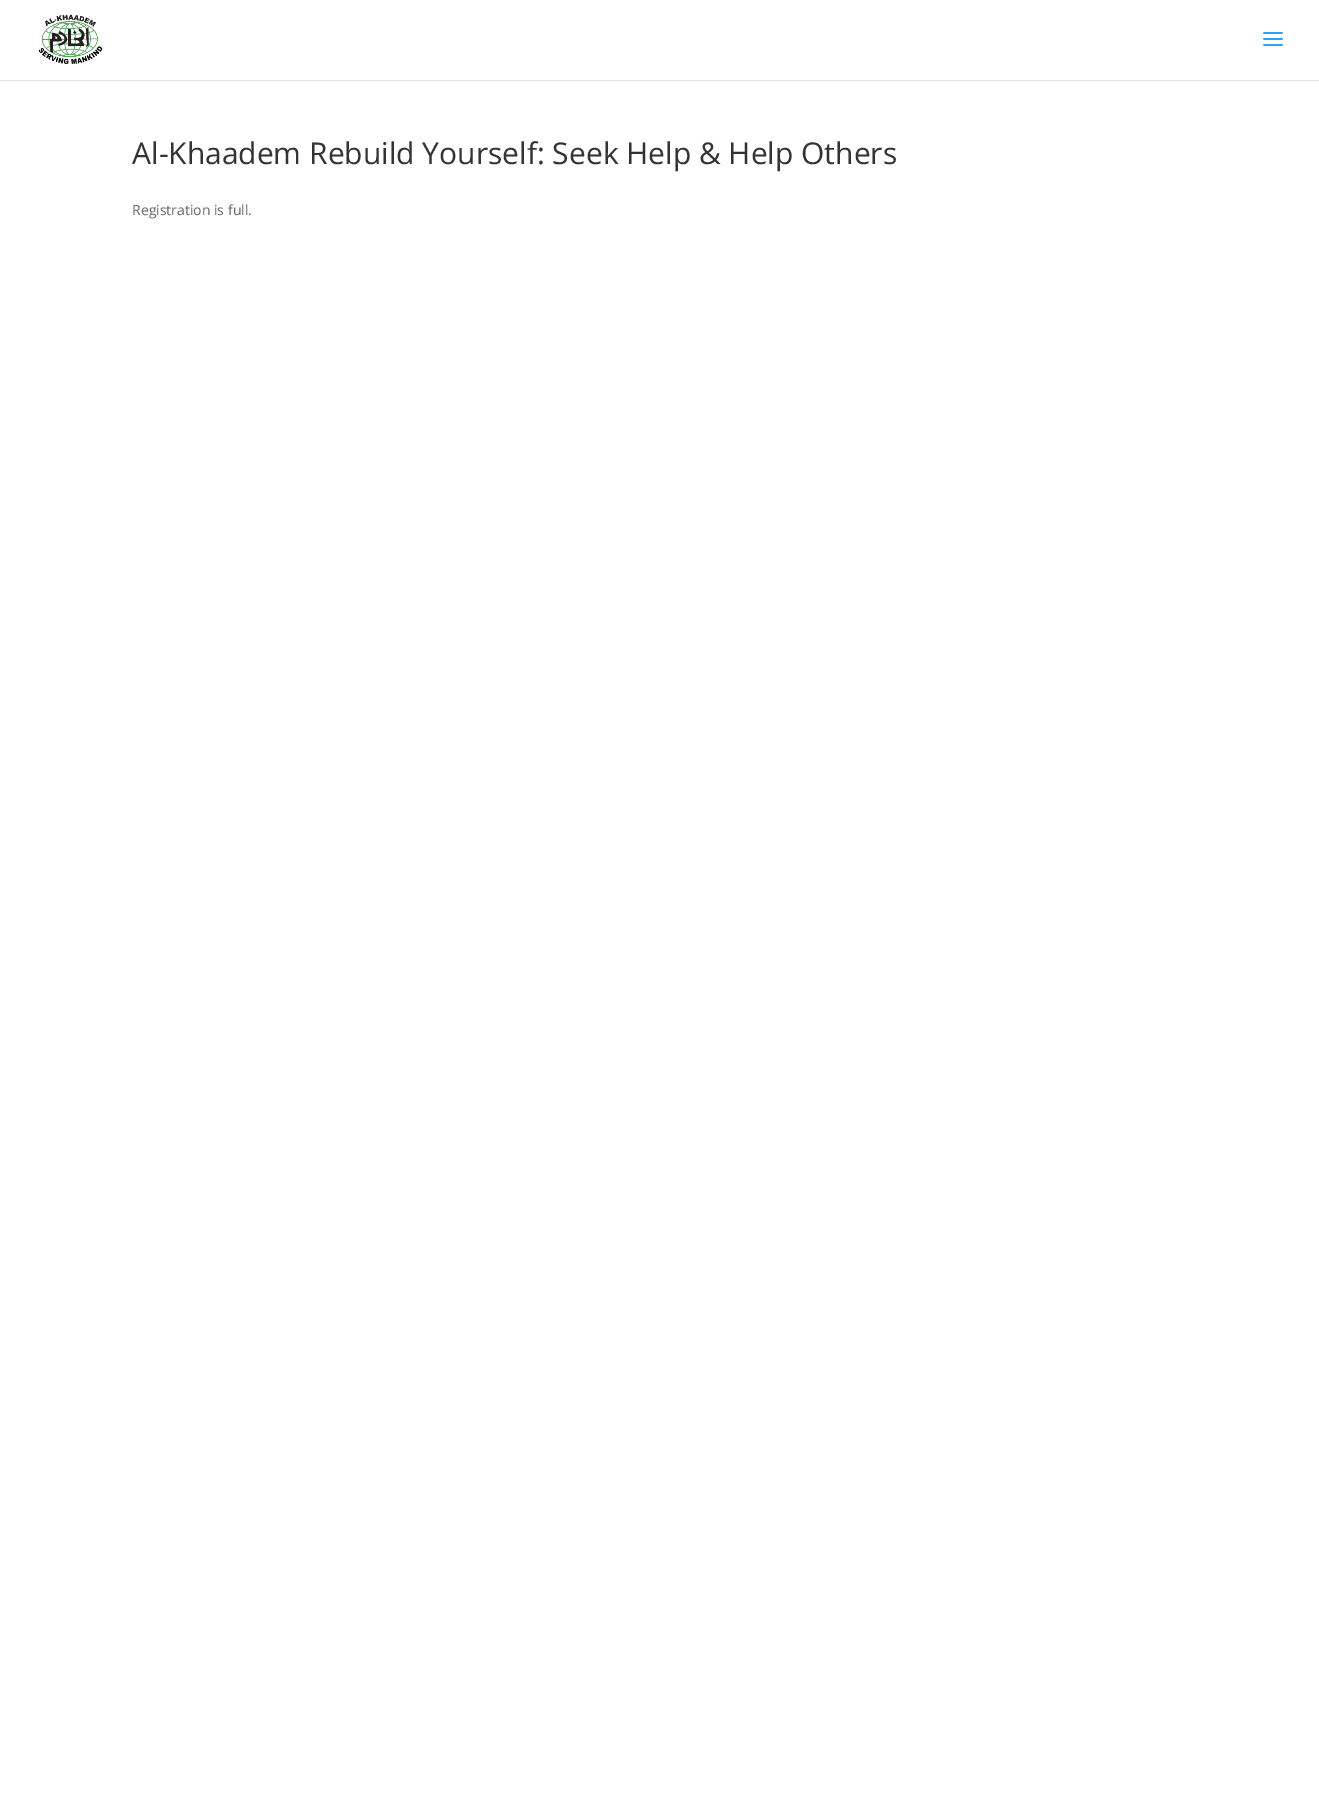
%!PS
<< /PageSize [1319 1805] >> setpagedevice
/rgb { 3 { 255 div 3 1 roll } repeat setrgbcolor } def
/font { [ exch dup neg 0 0 3 -1 roll 0 0 ] selectfont } def
/text { moveto show } def
/picture { 5 dict begin { /h /w /y /x /name } { exch def } forall
  gsave x y translate w h scale
  w h 8 [w 0 0 h 0 0] name (r) file false 3 colorimage grestore end } def
0 1805 translate 1 -1 scale
4 setmiterlimit
255 255 255 rgb
0 0 1319 1805 rectfill
230 230 230 rgb
0 80 1319 1 rectfill
(img_01.rgb) 38 14 65 50 picture
(img_02.rgb) 1263 32 20 14 picture
/OpenSans-Regular 30 font
51 51 51 rgb
(Al-Khaadem Rebuild Yourself: Seek Help & Help Others) 132 164 text
/OpenSans-Regular 14 font
102 102 102 rgb
(Registration is full.) 132 215 text
showpage
